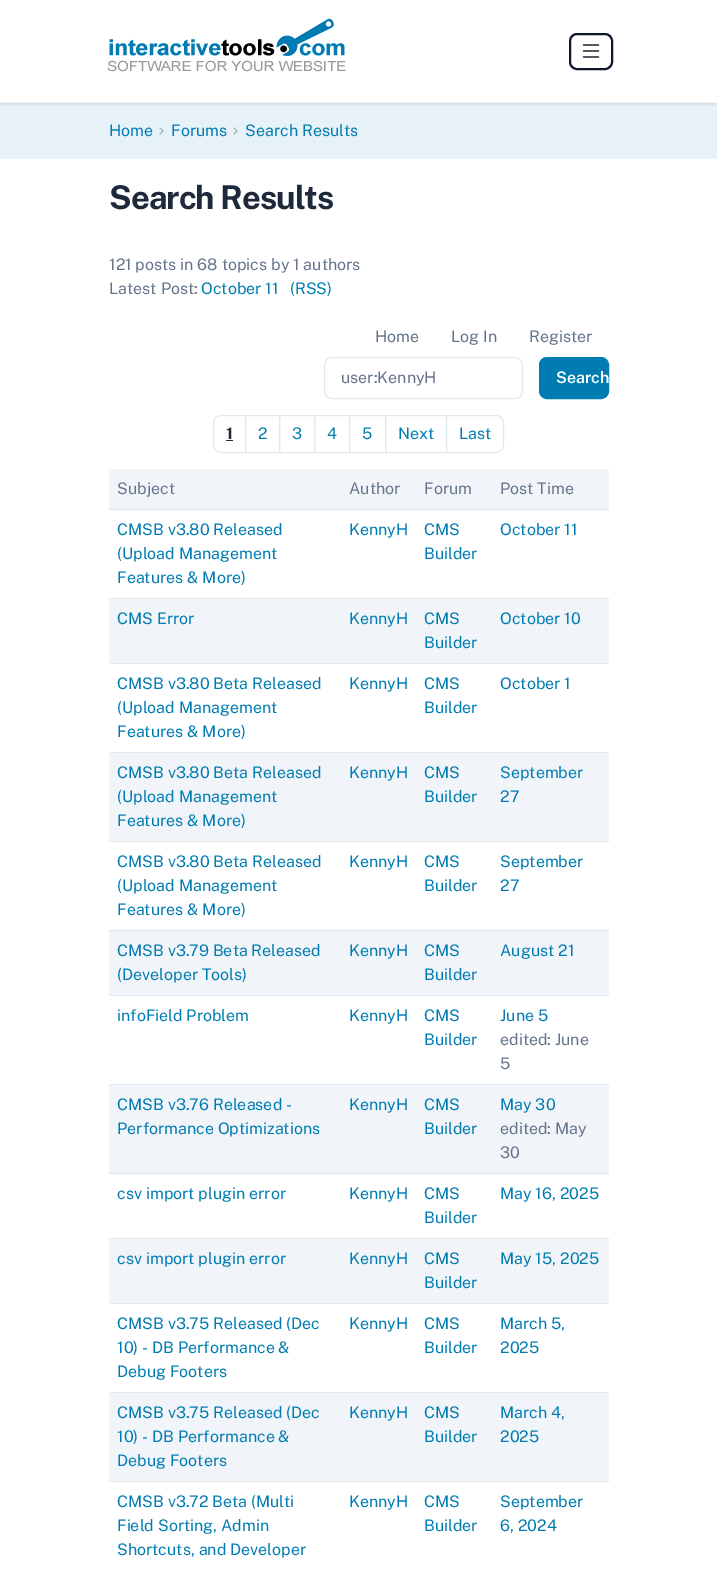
%!PS
<< /PageSize [717 1570] /PageUsesTransparency true >> setpagedevice
/rgb { 3 { 255 div 3 1 roll } repeat setrgbcolor } def
/font { [ exch dup neg 0 0 3 -1 roll 0 0 ] selectfont } def
/text { moveto show } def
/alpha { dup .setfillconstantalpha .setstrokeconstantalpha } def
/roundrect { 5 dict begin { /r /h /w /y /x } { exch def } forall
  x r add y moveto x w add y 2 copy h add r arct x w add y h add x 1 index r arct
  x y h add x y r arct x y 2 copy exch w add exch r arct closepath end } def
/shadow { 12 dict begin { /a /b /q /h /w /y /x } { exch def } forall gsave /was 0 def
  9 -2 -9 { dup b mul 4 div /e exch def 1 sub .425 mul 2.718 exch exp 1 add a .99 .min exch div /now exch def
    1 1 now sub 1 was sub div sub alpha /was now def
    w h .min e 2 mul add 0 gt { x e sub y e sub w e 2 mul add h e 2 mul add
      q e add b .6 mul add w h .min 2 div e add .min 0 .max roundrect fill } if } for grestore end } def
/picture { 5 dict begin { /h /w /y /x /name } { exch def } forall
  gsave x y translate w h scale
  w h 8 [w 0 0 h 0 0] name (r) file false 3 colorimage grestore end } def
0 .pushpdf14devicefilter
0 1570 translate 1 -1 scale
4 setmiterlimit
255 255 255 rgb
0 0 717 1570 rectfill
230 242 247 rgb
0 103 717 56 rectfill
gsave
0 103 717 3 rectclip
2 6 23 rgb
0 2 717 103 0 2 0.07 shadow
grestore
241 245 249 rgb
0 102 717 1 rectfill
(img_01.rgb) 107 18 239 54 picture
15 23 42 rgb
2 setlinewidth
570 34 42 35 7 roundrect stroke
(img_02.rgb) 582 44 18 14 picture
(img_03.rgb) 159 127 5 8 picture
(img_03.rgb) 233 127 5 8 picture
226 232 240 rgb
1 setlinewidth
324.5 357.5 198 41 7.5 roundrect stroke
0 124 178 rgb
539.5 357.5 69 41 7.5 roundrect gsave fill grestore
stroke
226 232 240 rgb
221 415.5 moveto 24.5 0 rlineto 0 37 rlineto -24.5 0 rlineto -4 0 -7.5 -3.5 -7.5 -7.5 rcurveto 0 -22 rlineto 0 -4 3.5 -7.5 7.5 -7.5 rcurveto closepath stroke
30 41 59 rgb
226 440 7 1 rectfill
226 232 240 rgb
245.5 415.5 34 37 rectstroke
279.5 415.5 35 37 rectstroke
314.5 415.5 35 37 rectstroke
349.5 415.5 36 37 rectstroke
385.5 415.5 61 37 rectstroke
255 255 255 rgb
446.5 415.5 moveto 49.5 0 rlineto 4 0 7.5 3.5 7.5 7.5 rcurveto 0 22 rlineto 0 4 -3.5 7.5 -7.5 7.5 rcurveto -49.5 0 rlineto closepath gsave fill grestore
226 232 240 rgb
stroke
241 245 249 rgb
109 469 500 40 rectfill
226 232 240 rgb
109 509 500 1 rectfill
109 598 500 1 rectfill
241 245 249 rgb
109 599 500 64 rectfill
226 232 240 rgb
109 663 500 1 rectfill
109 752 500 1 rectfill
241 245 249 rgb
109 753 500 88 rectfill
226 232 240 rgb
109 841 500 1 rectfill
109 930 500 1 rectfill
241 245 249 rgb
109 931 500 64 rectfill
226 232 240 rgb
109 995 500 1 rectfill
109 1084 500 1 rectfill
241 245 249 rgb
109 1085 500 88 rectfill
226 232 240 rgb
109 1173 500 1 rectfill
109 1238 500 1 rectfill
241 245 249 rgb
109 1239 500 64 rectfill
226 232 240 rgb
109 1303 500 1 rectfill
109 1392 500 1 rectfill
241 245 249 rgb
109 1393 500 88 rectfill
226 232 240 rgb
109 1481 500 1 rectfill
/PublicSans-Regular 16 font
0 124 178 rgb
(Home) 109 136 text
(Forums) 171 136 text
(Search Results) 245 136 text
/PublicSans-Bold 32.75 font
30 41 59 rgb
109 209 moveto -1 0 (Search Results) ashow
/PublicSans-Regular 16 font
100 116 139 rgb
(121 posts in 68 topics by 1 authors) 109 270 text
(Latest Post:) 109 294 text
0 124 178 rgb
(October 11) 201 294 text
(\(RSS\)) 290 294 text
100 116 139 rgb
(Home) 375 342 text
(Log In) 451 342 text
(Register) 529 342 text
(user:KennyH) 341 383 text
/PublicSans-SemiBold 16 font
255 255 255 rgb
(Search) 556 383 text
/PublicSans-Bold 16 font
30 41 59 rgb
(1) 226 439 text
/PublicSans-Regular 16 font
0 124 178 rgb
(2) 258 439 text
(3) 292 439 text
(4) 327 439 text
(5) 362 439 text
(Next) 398 439 text
(Last) 459 439 text
100 116 139 rgb
(Subject) 117 494 text
(Author) 349 494 text
(Forum) 424 494 text
(Post Time) 500 494 text
0 124 178 rgb
(CMSB v3.80 Released) 117 535 text
(\(Upload Management) 117 559 text
(Features & More\)) 117 583 text
(KennyH) 349 535 text
(CMS) 424 535 text
(Builder) 424 559 text
(October 11) 500 535 text
(CMS Error) 117 624 text
(KennyH) 349 624 text
(CMS) 424 624 text
(Builder) 424 648 text
(October 10) 500 624 text
(CMSB v3.80 Beta Released) 117 689 text
(\(Upload Management) 117 713 text
(Features & More\)) 117 737 text
(KennyH) 349 689 text
(CMS) 424 689 text
(Builder) 424 713 text
(October 1) 500 689 text
(CMSB v3.80 Beta Released) 117 778 text
(\(Upload Management) 117 802 text
(Features & More\)) 117 826 text
(KennyH) 349 778 text
(CMS) 424 778 text
(Builder) 424 802 text
(September) 500 778 text
(27) 500 802 text
(CMSB v3.80 Beta Released) 117 867 text
(\(Upload Management) 117 891 text
(Features & More\)) 117 915 text
(KennyH) 349 867 text
(CMS) 424 867 text
(Builder) 424 891 text
(September) 500 867 text
(27) 500 891 text
(CMSB v3.79 Beta Released) 117 956 text
(\(Developer Tools\)) 117 980 text
(KennyH) 349 956 text
(CMS) 424 956 text
(Builder) 424 980 text
(August 21) 500 956 text
(infoField Problem) 117 1021 text
(KennyH) 349 1021 text
(CMS) 424 1021 text
(Builder) 424 1045 text
(June 5) 500 1021 text
100 116 139 rgb
(edited: June) 500 1045 text
(5) 500 1069 text
0 124 178 rgb
(CMSB v3.76 Released -) 117 1110 text
(Performance Optimizations) 117 1134 text
(KennyH) 349 1110 text
(CMS) 424 1110 text
(Builder) 424 1134 text
(May 30) 500 1110 text
100 116 139 rgb
(edited: May) 500 1134 text
(30) 500 1158 text
0 124 178 rgb
(csv import plugin error) 117 1199 text
(KennyH) 349 1199 text
(CMS) 424 1199 text
(Builder) 424 1223 text
(May 16, 2025) 500 1199 text
(csv import plugin error) 117 1264 text
(KennyH) 349 1264 text
(CMS) 424 1264 text
(Builder) 424 1288 text
(May 15, 2025) 500 1264 text
(CMSB v3.75 Released \(Dec) 117 1329 text
(10\) - DB Performance &) 117 1353 text
(Debug Footers) 117 1377 text
(KennyH) 349 1329 text
(CMS) 424 1329 text
(Builder) 424 1353 text
(March 5,) 500 1329 text
(2025) 500 1353 text
(CMSB v3.75 Released \(Dec) 117 1418 text
(10\) - DB Performance &) 117 1442 text
(Debug Footers) 117 1466 text
(KennyH) 349 1418 text
(CMS) 424 1418 text
(Builder) 424 1442 text
(March 4,) 500 1418 text
(2025) 500 1442 text
(CMSB v3.72 Beta \(Multi) 117 1507 text
(Field Sorting, Admin) 117 1531 text
(Shortcuts, and Developer) 117 1555 text
(KennyH) 349 1507 text
(CMS) 424 1507 text
(Builder) 424 1531 text
(September) 500 1507 text
(6, 2024) 500 1531 text
.poppdf14devicefilter showpage
